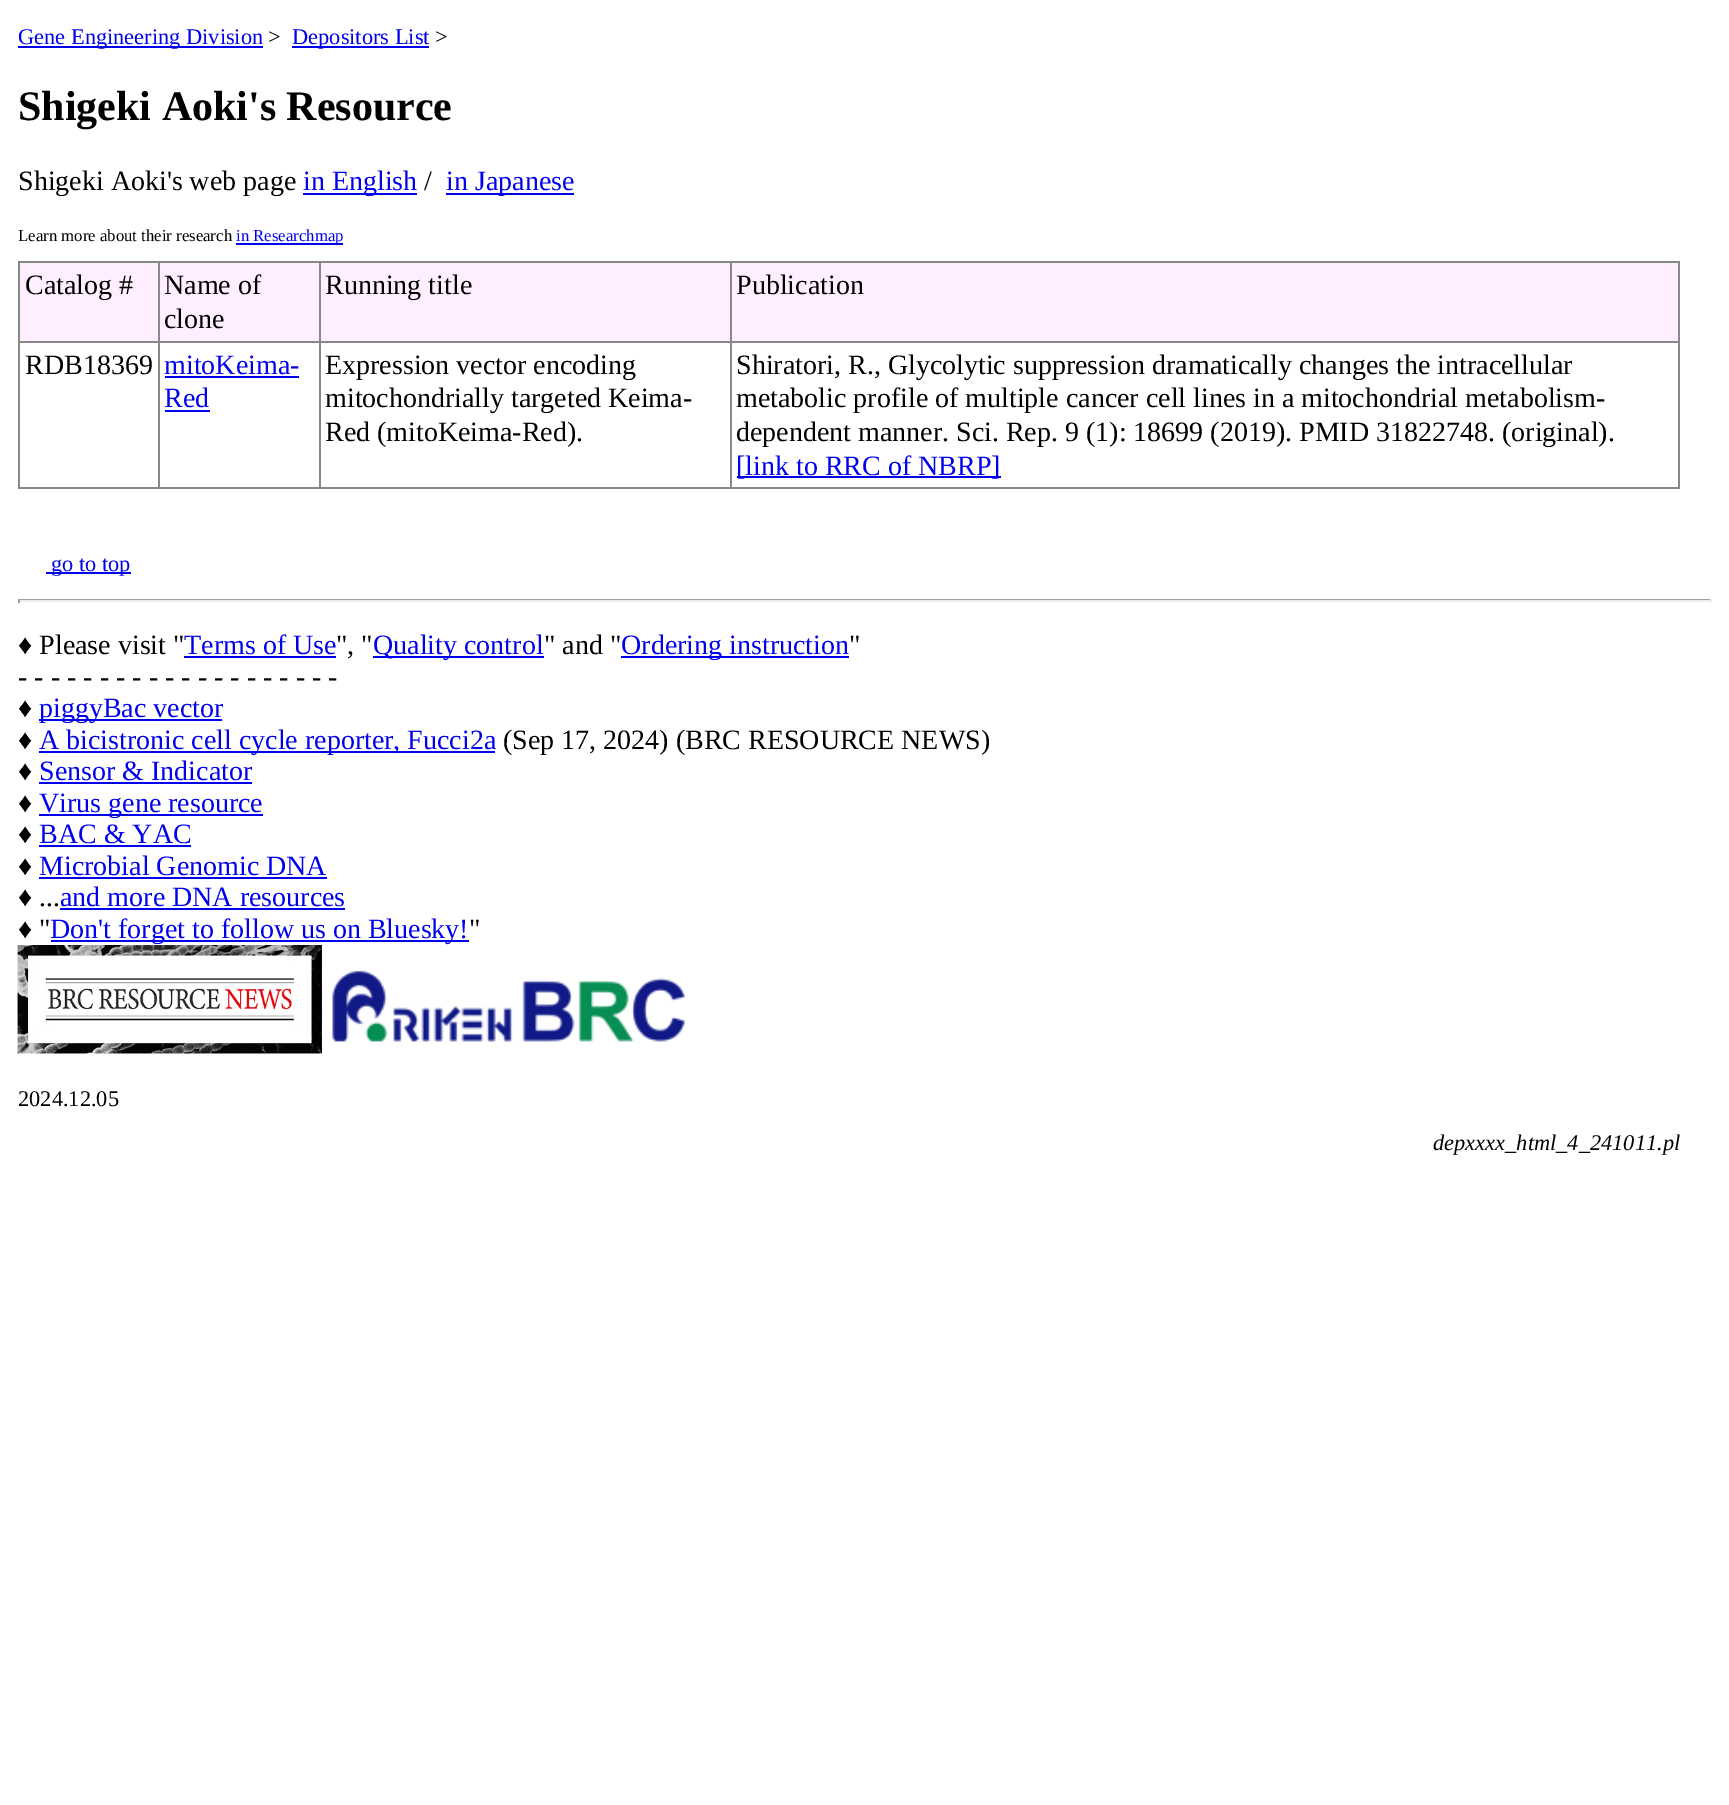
%!PS
<< /PageSize [1729 1805] >> setpagedevice
/rgb { 3 { 255 div 3 1 roll } repeat setrgbcolor } def
/font { [ exch dup neg 0 0 3 -1 roll 0 0 ] selectfont } def
/text { moveto show } def
/picture { 5 dict begin { /h /w /y /x /name } { exch def } forall
  gsave x y translate w h scale
  w h 8 [w 0 0 h 0 0] name (r) file false 3 colorimage grestore end } def
0 1805 translate 1 -1 scale
4 setmiterlimit
255 255 255 rgb
0 0 1729 1805 rectfill
0 0 238 rgb
18 46 245 2 rectfill
292 46 137 2 rectfill
303 193 114 2 rectfill
446 193 128 2 rectfill
236 243 107 2 rectfill
136 136 136 rgb
18 261 1662 2 rectfill
1678 261 2 227 rectfill
18 487 1662 2 rectfill
18 261 2 227 rectfill
255 238 255 rgb
20 263 138 78 rectfill
160 263 159 78 rectfill
136 136 136 rgb
730 341 950 2 rectfill
730 341 2 147 rectfill
319 341 413 2 rectfill
319 341 2 147 rectfill
158 341 162 2 rectfill
158 341 2 147 rectfill
18 341 141 2 rectfill
158 261 2 82 rectfill
255 238 255 rgb
321 263 409 78 rectfill
136 136 136 rgb
319 261 2 82 rectfill
255 238 255 rgb
732 263 946 78 rectfill
136 136 136 rgb
730 261 2 82 rectfill
0 0 238 rgb
165 376 134 2 rectfill
165 410 45 2 rectfill
737 476 264 2 rectfill
46 572 85 2 rectfill
159 159 159 rgb
18 599 1694 1 rectfill
238 238 238 rgb
1710 599 2 4 rectfill
18 600 1694 2 rectfill
159 159 159 rgb
18 599 2 4 rectfill
0 0 238 rgb
184 656 152 2 rectfill
373 656 171 2 rectfill
621 656 228 2 rectfill
39 719 183 2 rectfill
39 751 456 2 rectfill
39 782 213 2 rectfill
39 814 224 2 rectfill
39 845 152 2 rectfill
39 877 288 2 rectfill
60 908 285 2 rectfill
51 940 418 2 rectfill
(img_01.rgb) 17 945 305 109 picture
(img_02.rgb) 332 970 353 72 picture
/LiberationSerif-Regular 22.4 font
(Gene Engineering Division) 18 44 text
0 0 0 rgb
(>) 268 44 text
0 0 238 rgb
(Depositors List) 292 44 text
0 0 0 rgb
(>) 435 44 text
/LiberationSerif-Bold 42 font
(Shigeki Aoki's Resource) 18 120 text
/LiberationSerif-Regular 28 font
(Shigeki Aoki's web page) 18 190 text
0 0 238 rgb
(in English) 303 190 text
0 0 0 rgb
(/) 424 190 text
0 0 238 rgb
(in Japanese) 446 190 text
/LiberationSerif-Regular 16.75 font
0 0 0 rgb
(Learn more about their research) 18 241 text
0 0 238 rgb
(in Researchmap) 236 241 text
/LiberationSerif-Regular 28 font
0 0 0 rgb
(Catalog #) 25 294 text
(Name of) 164 294 text
(clone) 164 328 text
(Running title) 325 294 text
(Publication) 736 294 text
(RDB18369) 25 374 text
0 0 238 rgb
(mitoKeima-) 164 374 text
(Red) 164 407 text
0 0 0 rgb
(Expression vector encoding) 325 374 text
(mitochondrially targeted Keima-) 325 407 text
(Red \(mitoKeima-Red\).) 325 441 text
(Shiratori, R., Glycolytic suppression dramatically changes the intracellular) 736 374 text
(metabolic profile of multiple cancer cell lines in a mitochondrial metabolism-) 736 407 text
(dependent manner. Sci. Rep. 9 \(1\): 18699 \(2019\). PMID 31822748. \(original\).) 736 441 text
0 0 238 rgb
([link to RRC of NBRP]) 736 475 text
/LiberationSerif-Regular 22.4 font
(go to top) 51 571 text
/LiberationSerif-Regular 28 font
0 0 0 rgb
(♦ Please visit ") 18 654 text
0 0 238 rgb
(Terms of Use) 184 654 text
0 0 0 rgb
(", ") 336 654 text
0 0 238 rgb
(Quality control) 373 654 text
0 0 0 rgb
(" and ") 544 654 text
0 0 238 rgb
(Ordering instruction) 621 654 text
0 0 0 rgb
(") 849 654 text
(- - - - - - - - - - - - - - - - - - - -) 18 686 text
(♦) 18 717 text
0 0 238 rgb
(piggyBac vector) 39 717 text
0 0 0 rgb
(♦) 18 749 text
0 0 238 rgb
(A bicistronic cell cycle reporter, Fucci2a) 39 749 text
0 0 0 rgb
(\(Sep 17, 2024\) \(BRC RESOURCE NEWS\)) 503 749 text
(♦) 18 780 text
0 0 238 rgb
(Sensor & Indicator) 39 780 text
0 0 0 rgb
(♦) 18 812 text
0 0 238 rgb
(Virus gene resource) 39 812 text
0 0 0 rgb
(♦) 18 843 text
0 0 238 rgb
(BAC & YAC) 39 843 text
0 0 0 rgb
(♦) 18 875 text
0 0 238 rgb
(Microbial Genomic DNA) 39 875 text
0 0 0 rgb
(♦ ...) 18 906 text
0 0 238 rgb
(and more DNA resources) 60 906 text
0 0 0 rgb
(♦ ") 18 938 text
0 0 238 rgb
(Don't forget to follow us on Bluesky!) 50 938 text
0 0 0 rgb
(") 469 938 text
/LiberationSerif-Regular 22.4 font
(2024.12.05) 18 1106 text
/LiberationSerif-Italic 22.4 font
(depxxxx_html_4_241011.pl) 1433 1150 text
showpage
